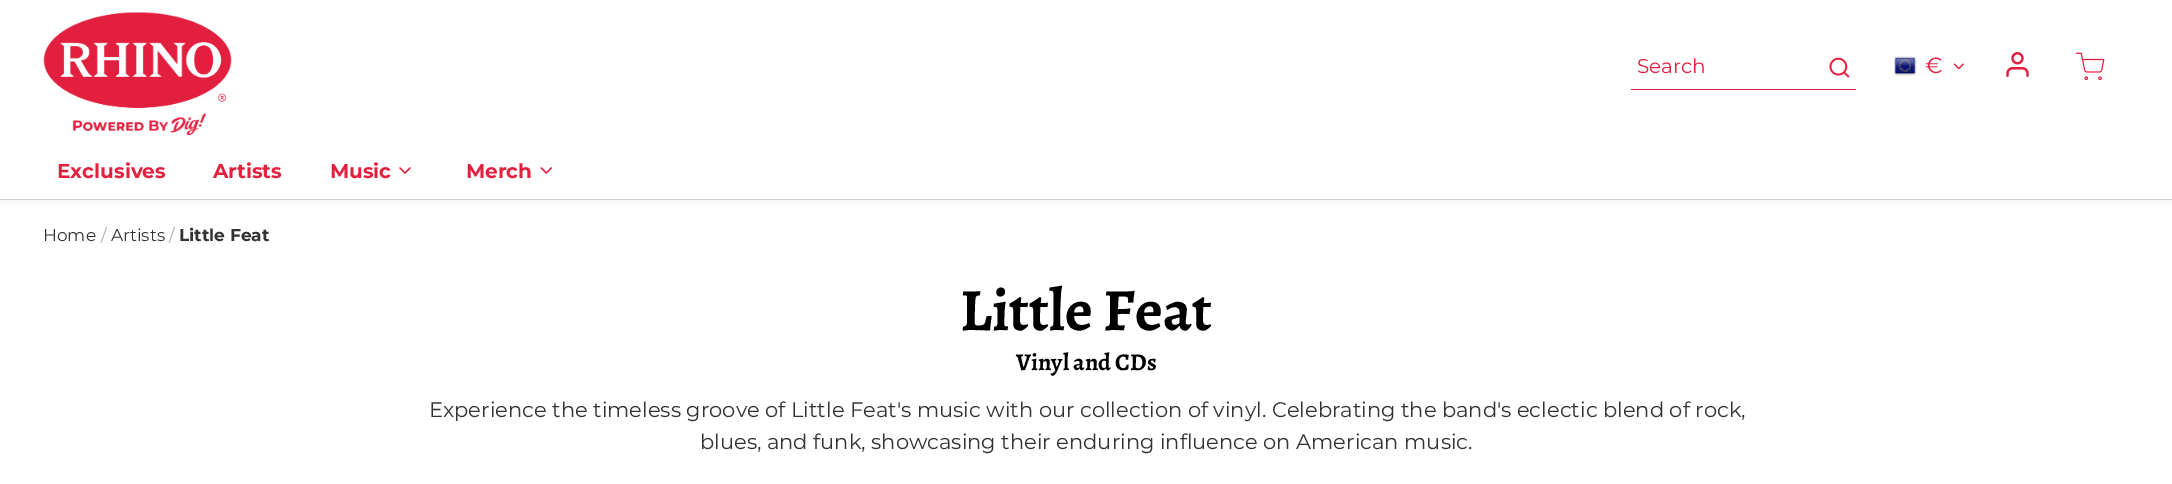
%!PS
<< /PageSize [2172 484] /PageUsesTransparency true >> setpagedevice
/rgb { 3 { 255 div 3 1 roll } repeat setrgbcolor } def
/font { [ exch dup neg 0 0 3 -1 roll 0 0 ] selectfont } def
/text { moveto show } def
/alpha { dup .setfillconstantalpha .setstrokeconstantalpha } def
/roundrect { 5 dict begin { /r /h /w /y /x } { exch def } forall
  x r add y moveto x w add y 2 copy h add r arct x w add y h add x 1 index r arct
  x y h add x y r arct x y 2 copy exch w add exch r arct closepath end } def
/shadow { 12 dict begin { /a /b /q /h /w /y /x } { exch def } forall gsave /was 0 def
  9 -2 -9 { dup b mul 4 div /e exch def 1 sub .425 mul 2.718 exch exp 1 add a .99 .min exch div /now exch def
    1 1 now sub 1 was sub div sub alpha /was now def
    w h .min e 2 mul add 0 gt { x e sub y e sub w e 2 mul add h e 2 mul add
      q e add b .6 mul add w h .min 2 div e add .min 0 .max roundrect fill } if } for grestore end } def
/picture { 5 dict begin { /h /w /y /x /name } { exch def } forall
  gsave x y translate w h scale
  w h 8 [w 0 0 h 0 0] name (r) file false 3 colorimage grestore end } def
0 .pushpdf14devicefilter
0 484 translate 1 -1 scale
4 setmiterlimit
255 255 255 rgb
0 0 2172 484 rectfill
0 0 17 rgb
0 0 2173 200 0 4.5 0.07 shadow
255 255 255 rgb
0 0 2172 199 rectfill
207 207 207 rgb
0 199 2172 1 rectfill
(img_01.rgb) 43 12 189 123 picture
228 32 63 rgb
1631 89 225 1 rectfill
(img_02.rgb) 1829 57 21 21 picture
(img_03.rgb) 1894 56 23 20 picture
(img_04.rgb) 1953 63 11 7 picture
(img_05.rgb) 2006 52 23 25 picture
(img_06.rgb) 2075 52 30 29 picture
(img_07.rgb) 399 167 12 7 picture
(img_08.rgb) 540 167 12 7 picture
/Montserrat-Regular 20 font
(Search) 1637 73 text
/Montserrat-Regular 22 font
(€) 1925 73 text
/Montserrat-Bold 20 font
(Exclusives) 57 178 text
(Artists) 213 178 text
(Music) 330 178 text
(Merch) 466 178 text
/Montserrat-Regular 17 font
51 51 51 rgb
(Home) 43 241 text
173 173 173 rgb
(/) 101 241 text
51 51 51 rgb
(Artists) 111 241 text
173 173 173 rgb
(/) 169 241 text
/Montserrat-Bold 17 font
51 51 51 rgb
(Little Feat) 179 241 text
/Alegreya-Bold 60 font
0 0 0 rgb
(Little Feat) 960 330 text
/Alegreya-Bold 24 font
(Vinyl and CDs) 1016 370 text
/Montserrat-Regular 21 font
51 51 51 rgb
(Experience the timeless groove of Little Feat's music with our collection of vinyl. Celebrating the band's eclectic blend of rock,) 429 417 text
(blues, and funk, showcasing their enduring influence on American music.) 700 449 text
.poppdf14devicefilter showpage
